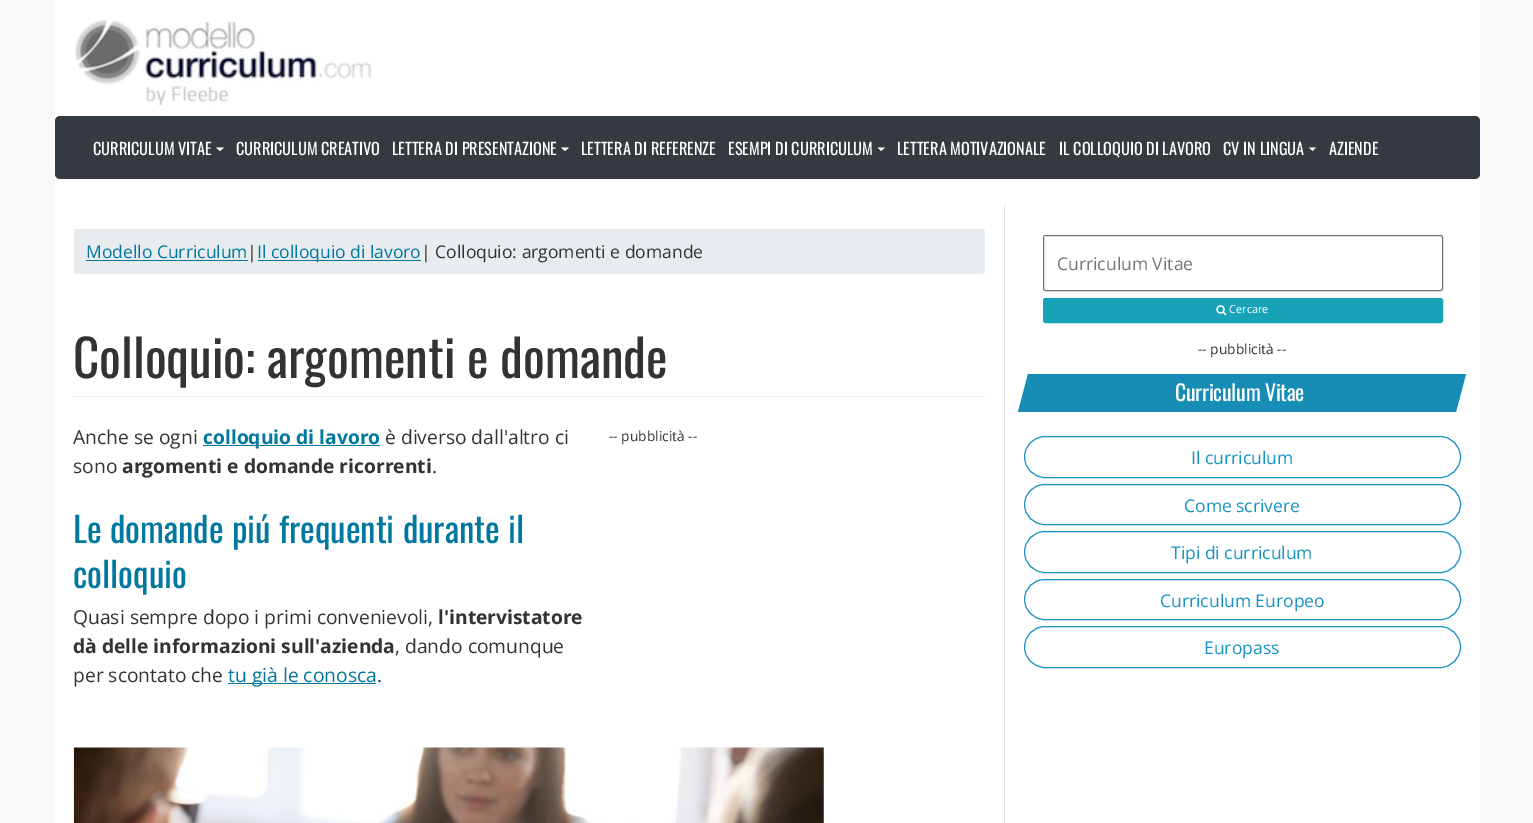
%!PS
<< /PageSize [1533 823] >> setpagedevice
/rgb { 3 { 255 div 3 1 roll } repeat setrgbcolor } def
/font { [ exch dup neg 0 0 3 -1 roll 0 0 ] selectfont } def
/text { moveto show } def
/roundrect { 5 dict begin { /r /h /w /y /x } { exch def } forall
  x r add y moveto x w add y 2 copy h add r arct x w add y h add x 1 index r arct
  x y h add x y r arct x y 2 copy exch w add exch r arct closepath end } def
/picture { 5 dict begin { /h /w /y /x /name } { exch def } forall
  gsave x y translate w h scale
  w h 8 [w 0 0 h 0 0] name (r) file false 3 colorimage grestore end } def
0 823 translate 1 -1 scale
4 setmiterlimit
248 248 248 rgb
0 0 1533 823 rectfill
255 255 255 rgb
55 0 1425 823 rectfill
(img_01.rgb) 75 19 297 87 picture
52 58 64 rgb
55 116 1425 63 5 roundrect fill
255 255 255 rgb
216 147.5 moveto 8 0 rlineto -4 3.5 rlineto closepath fill
561 147.5 moveto 8 0 rlineto -4 3.5 rlineto closepath fill
877.5 147.5 moveto 7.5 0 rlineto -4 3.5 rlineto closepath fill
1309 147.5 moveto 7 0 rlineto -3.5 3.5 rlineto closepath fill
229 229 229 rgb
1004 204 1 619 rectfill
233 236 239 rgb
74 229 911 45 3 roundrect fill
0 120 159 rgb
86 260 162 1 rectfill
258 260 163 1 rectfill
238 238 238 rgb
74 396 911 1 rectfill
0 120 159 rgb
203 445 177 1 rectfill
228 683 148 1 rectfill
(img_02.rgb) 73 747 751 76 picture
118 118 118 rgb
1043.5 235.5 399 55 2 roundrect stroke
23 162 184 rgb
1043.5 298.5 399 24 2 roundrect gsave fill grestore
stroke
(img_03.rgb) 1216 305 11 11 picture
23 141 181 rgb
1028 374 moveto 438 0 rlineto -10 38 rlineto -438 0 rlineto closepath fill
21 148 196 rgb
1024.5 436.5 436 41 20.5 roundrect stroke
1024.5 484.5 436 40 20 roundrect stroke
1024.5 531.5 436 41 20.5 roundrect stroke
1024.5 579.5 436 40 20 roundrect stroke
1024.5 626.5 436 41 20.5 roundrect stroke
/Oswald-Regular 16.25 font
255 255 255 rgb
(CURRICULUM VITAE) 93 155 text
(CURRICULUM CREATIVO) 236 155 text
(LETTERA DI PRESENTAZIONE) 392 155 text
(LETTERA DI REFERENZE) 581 155 text
(ESEMPI DI CURRICULUM) 728 155 text
(LETTERA MOTIVAZIONALE) 897 155 text
(IL COLLOQUIO DI LAVORO) 1059 155 text
(CV IN LINGUA) 1223 155 text
(AZIENDE) 1329 155 text
/OpenSans-Regular 17.5 font
0 120 159 rgb
(Modello Curriculum) 86 258 text
51 51 51 rgb
(|) 247 258 text
0 120 159 rgb
(Il colloquio di lavoro) 257 258 text
51 51 51 rgb
(| Colloquio: argomenti e domande) 421 258 text
/Oswald-Regular 51.25 font
(Colloquio: argomenti e domande) 73 378 text
/OpenSans-Regular 19.25 font
(Anche se ogni) 73 444 text
/OpenSans-Bold 19.25 font
0 120 159 rgb
(colloquio di lavoro) 203 444 text
/OpenSans-Regular 19.25 font
51 51 51 rgb
(è diverso dall'altro ci) 385 444 text
(sono) 73 473 text
/OpenSans-Bold 19.25 font
(argomenti e domande ricorrenti) 122 473 text
/OpenSans-Regular 19.25 font
(.) 432 473 text
/OpenSans-Regular 13.75 font
(-- pubblicità --) 609 441 text
/Oswald-Regular 35 font
0 120 159 rgb
(Le domande piú frequenti durante il) 73 543 text
(colloquio) 73 588 text
/OpenSans-Regular 19.25 font
51 51 51 rgb
(Quasi sempre dopo i primi convenievoli,) 73 624 text
/OpenSans-Bold 19.25 font
(l'intervistatore) 438 624 text
(dà delle informazioni sull'azienda) 73 653 text
/OpenSans-Regular 19.25 font
(, dando comunque) 395 653 text
(per scontato che) 73 682 text
0 120 159 rgb
(tu già le conosca) 228 682 text
51 51 51 rgb
(.) 377 682 text
/OpenSans-Regular 17.5 font
117 117 117 rgb
(Curriculum Vitae) 1057 270 text
/OpenSans-Regular 11 font
255 255 255 rgb
(Cercare) 1229 313 text
/OpenSans-Regular 13.75 font
51 51 51 rgb
(-- pubblicità --) 1198 354 text
/Oswald-Regular 21.75 font
255 255 255 rgb
1175 401 moveto -0.25 0 (Curriculum Vitae) ashow
/OpenSans-Regular 17.5 font
21 148 196 rgb
(Il curriculum) 1191 464 text
(Come scrivere) 1184 512 text
(Tipi di curriculum) 1171 559 text
(Curriculum Europeo) 1160 607 text
(Europass) 1204 654 text
showpage
